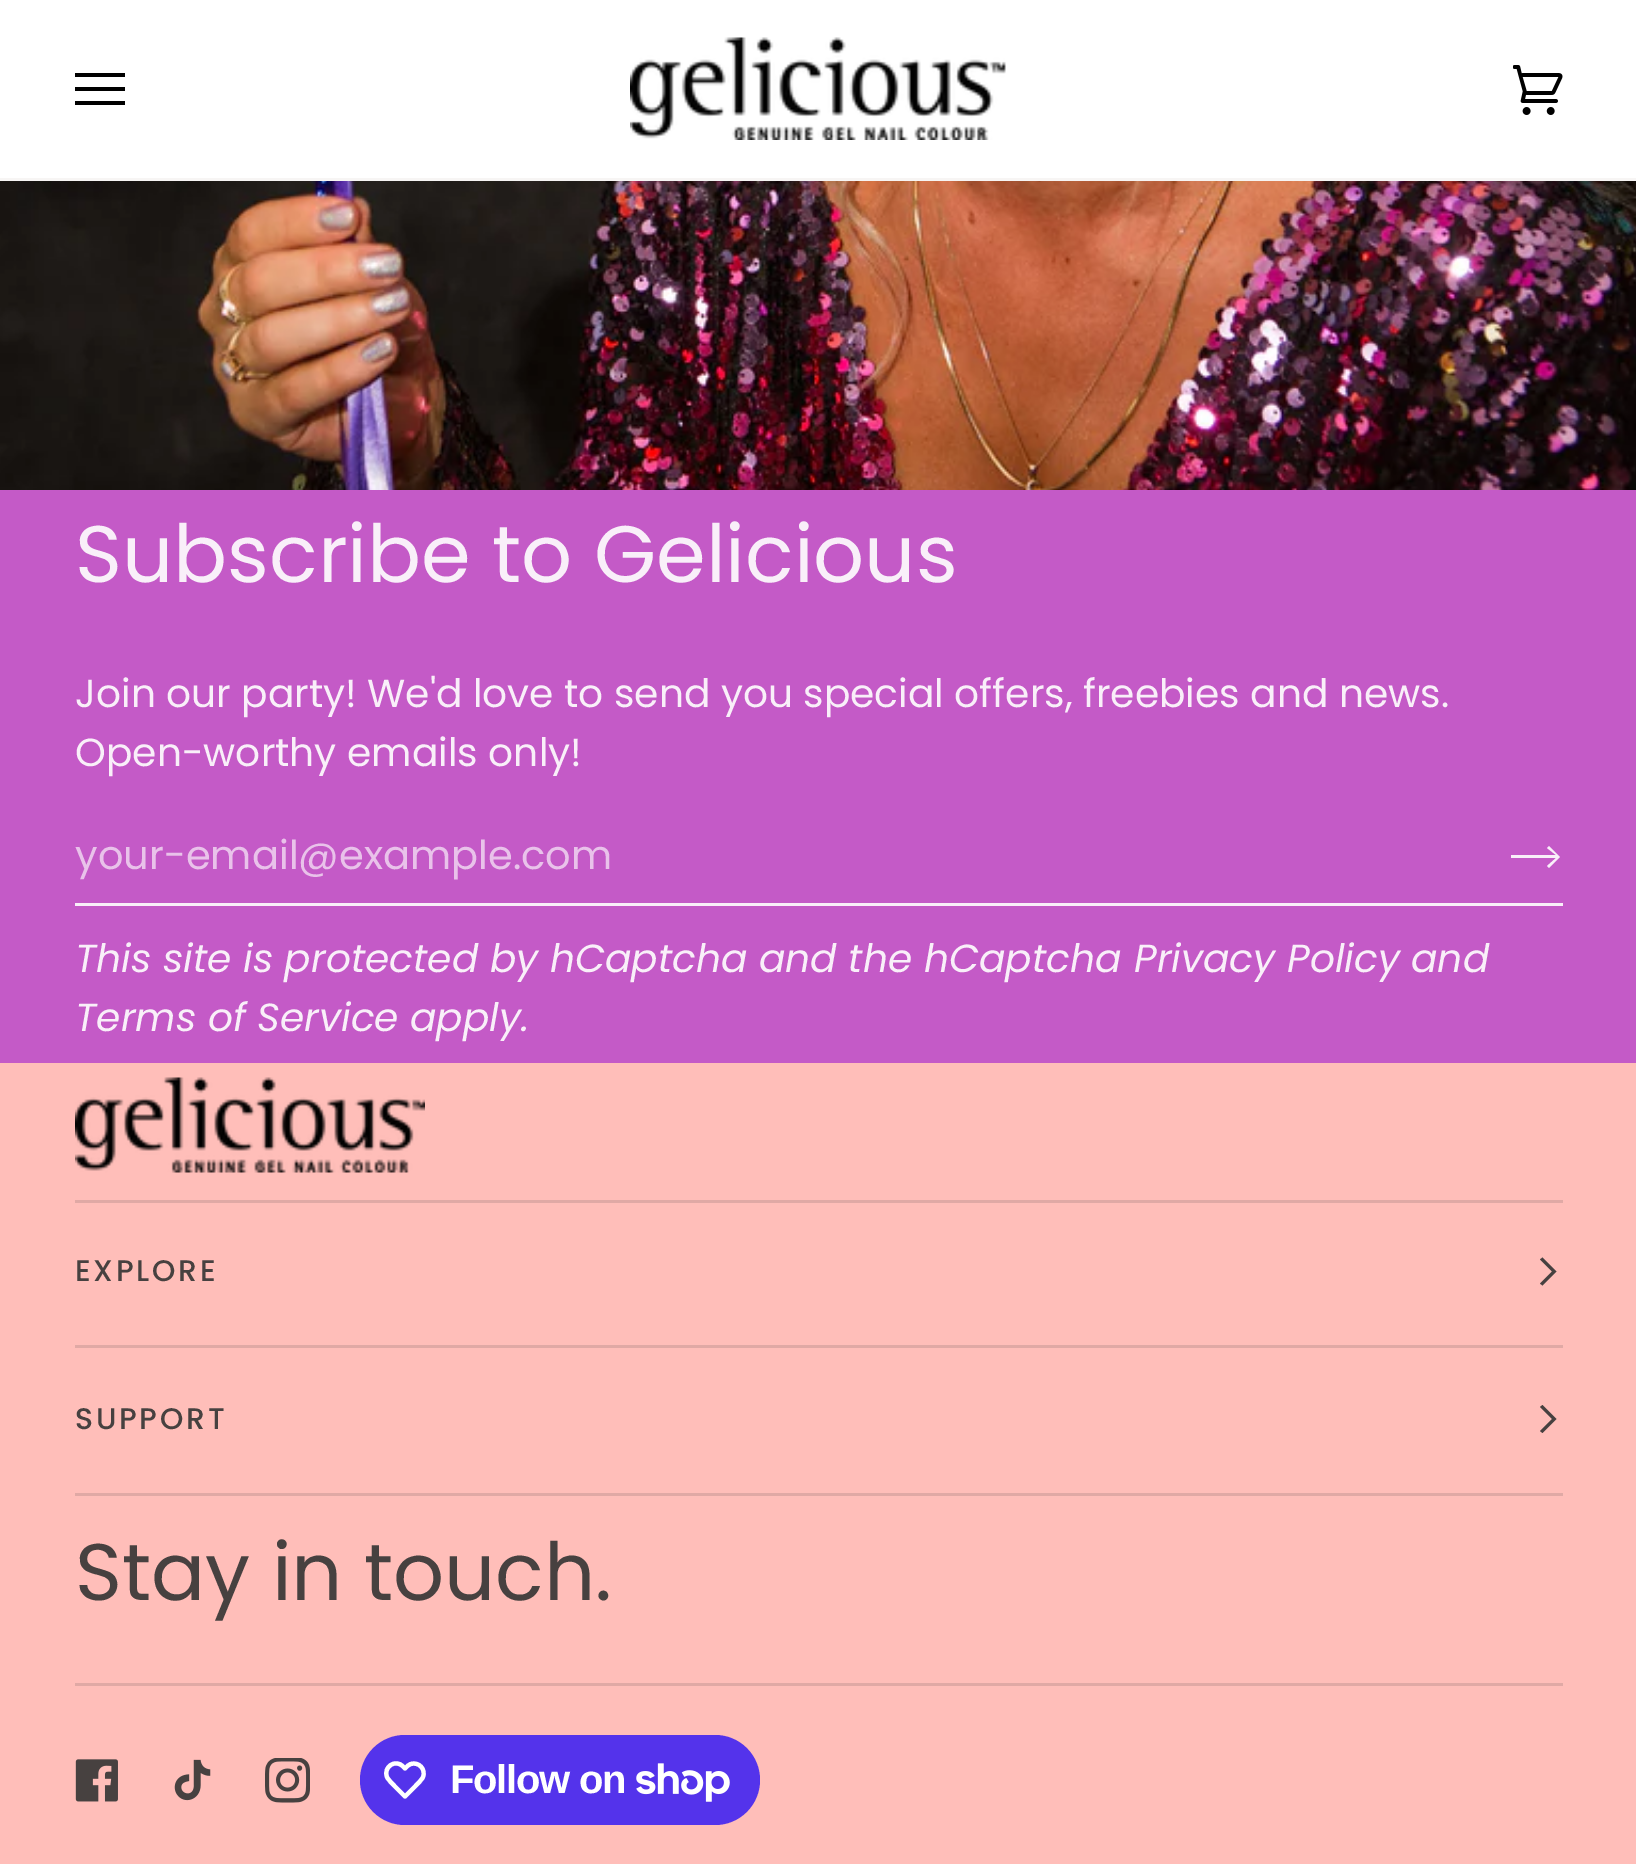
%!PS
<< /PageSize [1636 1864] >> setpagedevice
/rgb { 3 { 255 div 3 1 roll } repeat setrgbcolor } def
/font { [ exch dup neg 0 0 3 -1 roll 0 0 ] selectfont } def
/text { moveto show } def
/roundrect { 5 dict begin { /r /h /w /y /x } { exch def } forall
  x r add y moveto x w add y 2 copy h add r arct x w add y h add x 1 index r arct
  x y h add x y r arct x y 2 copy exch w add exch r arct closepath end } def
/picture { 5 dict begin { /h /w /y /x /name } { exch def } forall
  gsave x y translate w h scale
  w h 8 [w 0 0 h 0 0] name (r) file false 3 colorimage grestore end } def
0 1864 translate 1 -1 scale
4 setmiterlimit
255 190 185 rgb
0 0 1636 1864 rectfill
247 245 244 rgb
0 178 1636 3 rectfill
255 255 255 rgb
0 0 1636 178 rectfill
0 0 0 rgb
75 73 moveto 50 0 rlineto 0 4 rlineto -50 0 rlineto closepath 75 87 moveto 50 0 rlineto 0 4 rlineto -50 0 rlineto closepath 75 101 moveto 50 0 rlineto 0 4 rlineto -50 0 rlineto closepath fill
(img_01.rgb) 630 37 376 103 picture
(img_02.rgb) 1513 65 50 50 picture
196 90 199 rgb
0 490 1636 573 rectfill
(img_03.rgb) 0 181 1636 309 picture
249 239 249 rgb
75 903 1488 3 rectfill
1547 848 moveto 2 -2 rlineto 11 11 rlineto -11 11 rlineto -2 -2 rlineto 9 -8 rlineto -45 0 rlineto 0 -3 rlineto 45 0 rlineto closepath fill
(img_04.rgb) 75 1077 350 96 picture
224 169 165 rgb
75 1200 1488 3 rectfill
75 1345 1488 3 rectfill
71 65 64 rgb
1552 1271.5 moveto -12 -12 rlineto 2.5 -2 rlineto 14 14 rlineto -14 14 rlineto -2.5 -2 rlineto closepath eofill
224 169 165 rgb
75 1493 1488 3 rectfill
71 65 64 rgb
1552 1419 moveto -12 -12 rlineto 2.5 -2 rlineto 14 14 rlineto -14 14 rlineto -2.5 -2 rlineto closepath eofill
224 169 165 rgb
75 1683 1488 3 rectfill
(img_05.rgb) 75 1759 43 43 picture
(img_06.rgb) 174 1759 37 42 picture
(img_07.rgb) 265 1758 45 45 picture
84 51 235 rgb
360 1735 400 90 45 roundrect fill
255 255 255 rgb
4.2 setlinewidth
1 setlinejoin
403 1766.5 moveto 2 2 rlineto 2 -2 3.5 -4 6 -4.5 rcurveto 8 -2.5 15 5.5 12 13 rcurveto -1.5 3.5 -5 6 -7.5 9 rcurveto -10.5 10.5 rlineto -10.5 -10.5 rlineto -2.5 -3 -6 -5.5 -7.5 -9 rcurveto -4 -10 8.5 -18.5 16 -10.5 rcurveto closepath stroke
(img_08.rgb) 636 1763 94 39 picture
/Poppins-Regular 80 font
249 239 249 rgb
(Subscribe to Gelicious) 75 582 text
/Poppins-Regular 39.2 font
75 707 moveto -0.1 0 32 (Join our party! We'd love to send you special offers, freebies and news.) widthshow
(Open-worthy emails only!) 75 766 text
/Poppins-Regular 40 font
233 194 234 rgb
(your-email@example.com) 75 869 text
/Poppins-Italic 39.2 font
249 239 249 rgb
75 972 moveto -0.25 0 32 (This site is protected by hCaptcha and the hCaptcha) widthshow
(Privacy Policy) 1134 972 text
(and) 1411 972 text
(Terms of Service) 75 1031 text
(apply.) 410 1031 text
/Poppins-Medium 29.75 font
71 65 64 rgb
75 1281 moveto 2.75 0 (EXPLORE) ashow
75 1429 moveto 2.75 0 (SUPPORT) ashow
/Poppins-Regular 80 font
(Stay in touch.) 75 1600 text
/LiberationSans-Bold 40 font
255 255 255 rgb
450 1793 moveto -1.25 0 (Follow on) ashow
showpage
